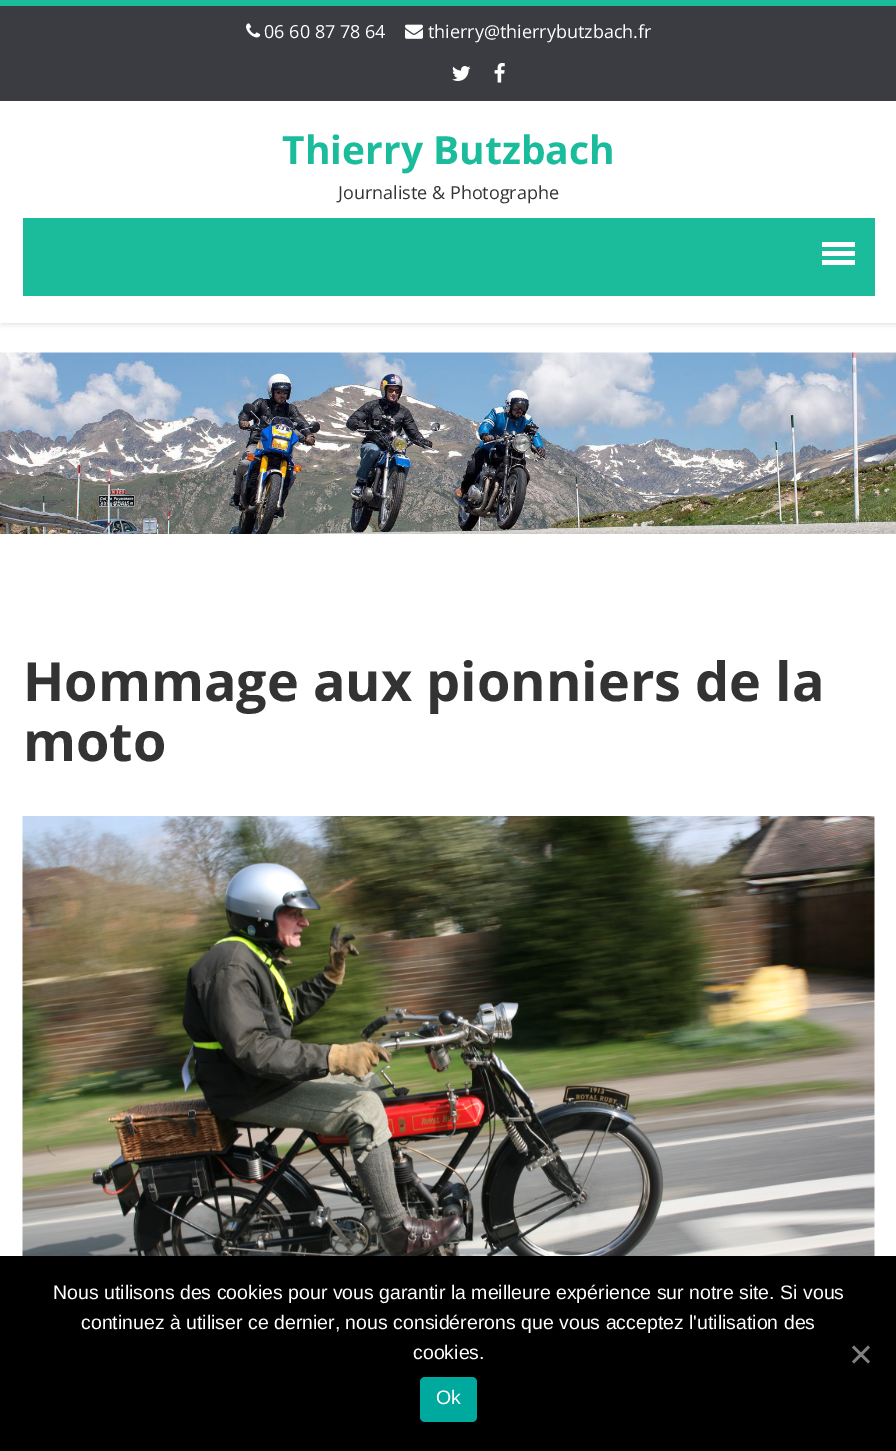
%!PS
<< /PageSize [896 1451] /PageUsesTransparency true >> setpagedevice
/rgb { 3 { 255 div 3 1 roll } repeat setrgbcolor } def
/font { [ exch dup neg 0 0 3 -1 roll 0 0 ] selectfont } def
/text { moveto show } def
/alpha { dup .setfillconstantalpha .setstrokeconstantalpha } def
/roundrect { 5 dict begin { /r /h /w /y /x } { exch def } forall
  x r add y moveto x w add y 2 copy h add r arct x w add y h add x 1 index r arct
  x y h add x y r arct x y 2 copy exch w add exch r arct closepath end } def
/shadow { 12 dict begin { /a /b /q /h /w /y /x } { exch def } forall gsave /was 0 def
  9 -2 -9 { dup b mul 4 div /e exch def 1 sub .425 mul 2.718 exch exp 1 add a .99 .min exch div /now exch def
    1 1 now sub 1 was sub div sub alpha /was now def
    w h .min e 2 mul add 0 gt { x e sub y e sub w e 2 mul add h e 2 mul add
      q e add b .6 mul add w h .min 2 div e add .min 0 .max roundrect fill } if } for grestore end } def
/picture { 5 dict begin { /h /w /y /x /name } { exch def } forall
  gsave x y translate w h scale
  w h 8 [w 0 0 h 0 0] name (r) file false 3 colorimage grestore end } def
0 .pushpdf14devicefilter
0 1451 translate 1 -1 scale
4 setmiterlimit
255 255 255 rgb
0 0 896 1451 rectfill
221 221 221 rgb
2 2 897 322 0 3 1 shadow
58 60 65 rgb
0 6 896 95 rectfill
26 188 156 rgb
0 0 896 6 rectfill
(img_01.rgb) 246 23 15 15 picture
(img_02.rgb) 405 24 18 15 picture
(img_03.rgb) 452 66 19 15 picture
(img_04.rgb) 494 63 11 20 picture
255 255 255 rgb
0 101 896 222 rectfill
26 188 156 rgb
23 218 852 78 rectfill
255 255 255 rgb
822 242 33 5 rectfill
822 251 33 5 rectfill
822 260 33 5 rectfill
(img_05.rgb) 0 352 896 182 picture
(img_06.rgb) 22 816 853 440 picture
0 0 0 rgb
0 1256 896 195 rectfill
128 128 128 rgb
868 1345.5 moveto 2 2 rlineto -16 16 rlineto -2 -2 rlineto closepath fill
852 1347.5 moveto 2 -2 rlineto 16 16 rlineto -2 2 rlineto closepath fill
0 169 157 rgb
420 1377 57 45 5 roundrect fill
/OpenSans-Regular 18 font
255 255 255 rgb
(06 60 87 78 64) 264 38 text
(thierry@thierrybutzbach.fr) 428 38 text
/OpenSans-Bold 39 font
26 188 156 rgb
(Thierry Butzbach) 282 164 text
/OpenSans-Regular 18 font
51 51 51 rgb
(Journaliste & Photographe) 338 199 text
/OpenSans-Bold 54 font
(Hommage aux pionniers de la) 23 701 text
(moto) 23 761 text
/LiberationSans-Regular 19.5 font
255 255 255 rgb
(Nous utilisons des cookies pour vous garantir la meilleure expérience sur notre site. Si vous) 53 1299 text
(continuez à utiliser ce dernier, nous considérerons que vous acceptez l'utilisation des) 81 1329 text
(cookies.) 413 1359 text
(Ok) 436 1404 text
.poppdf14devicefilter showpage
